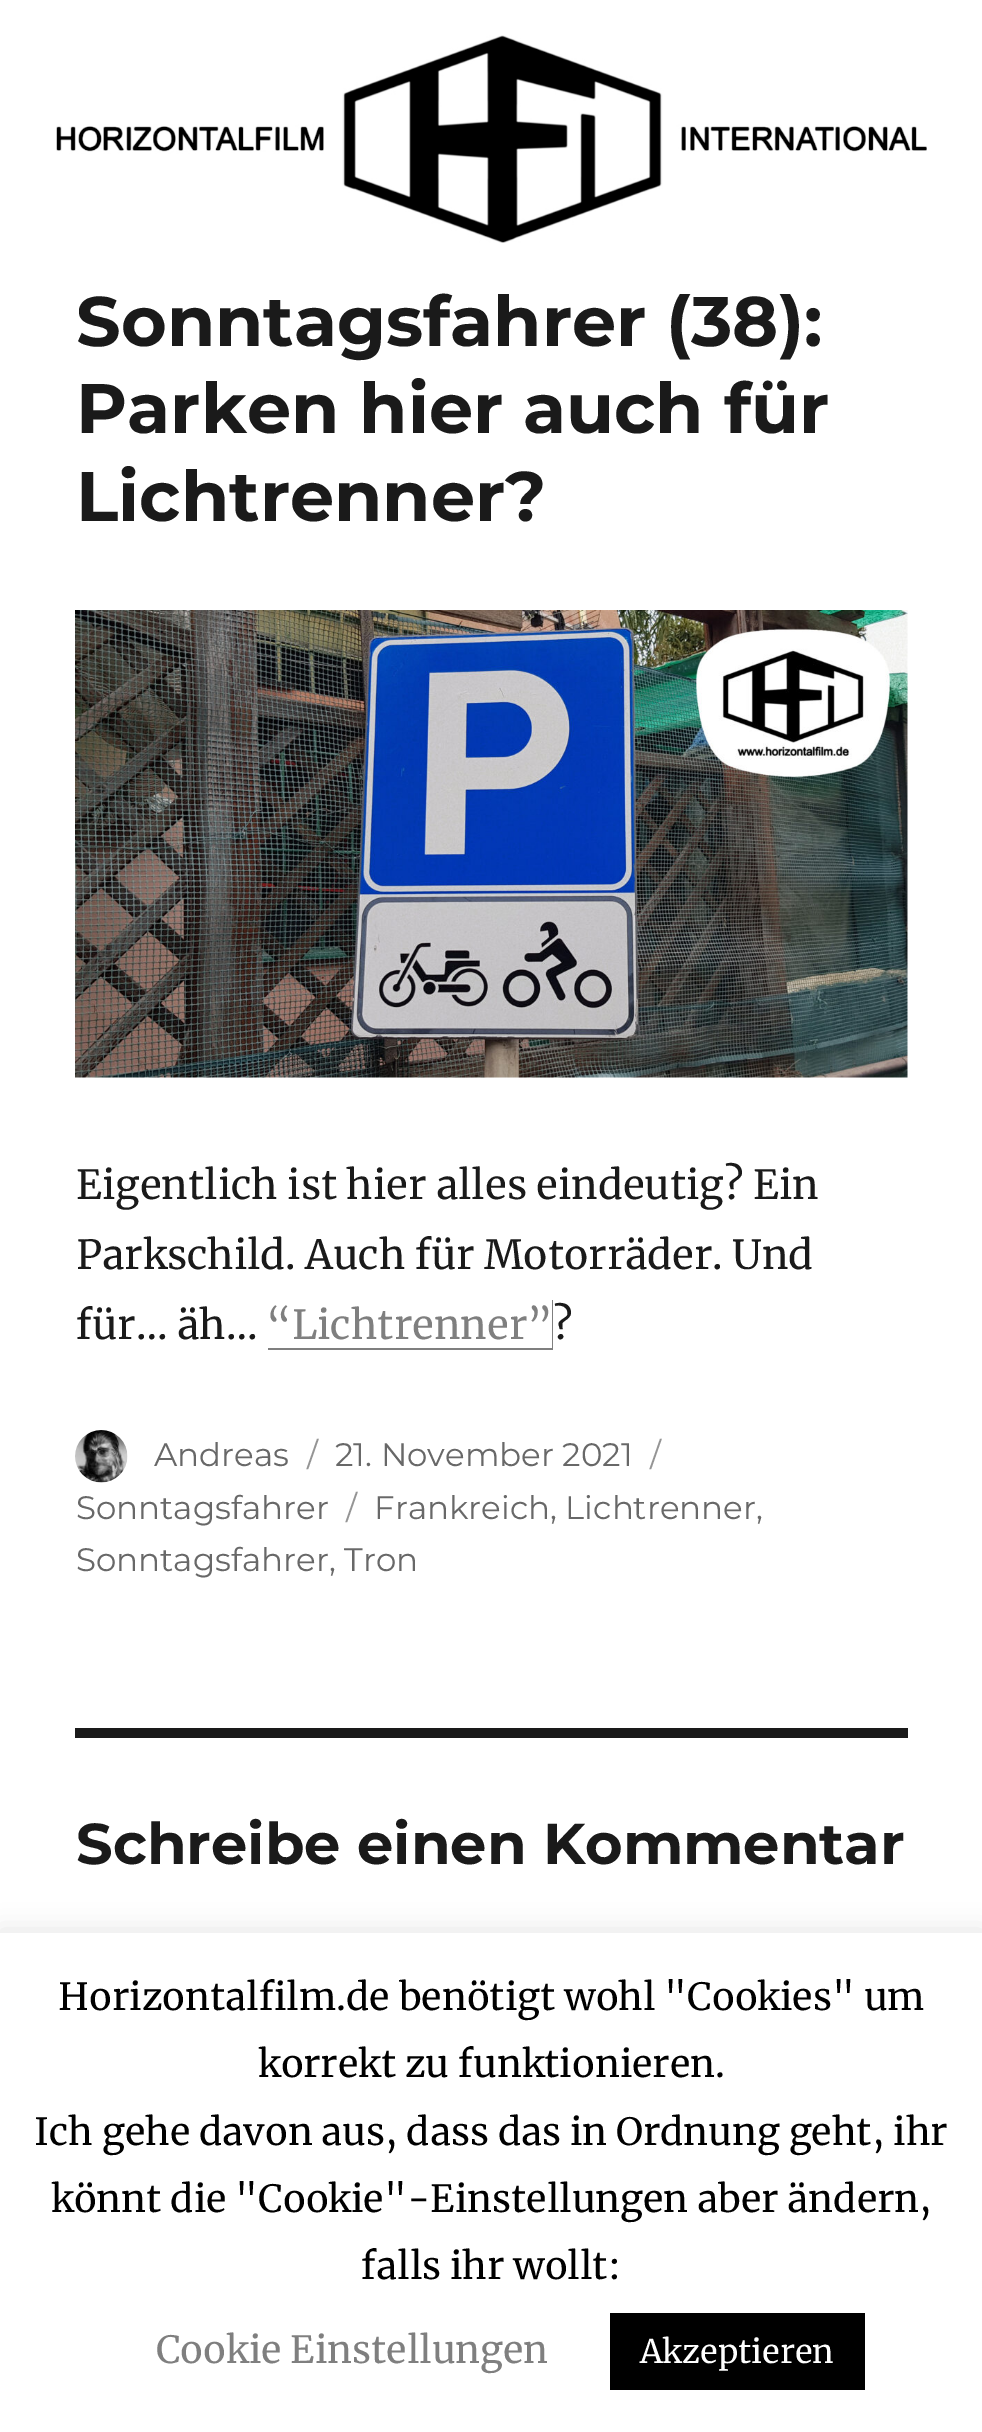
%!PS
<< /PageSize [982 2432] /PageUsesTransparency true >> setpagedevice
/rgb { 3 { 255 div 3 1 roll } repeat setrgbcolor } def
/font { [ exch dup neg 0 0 3 -1 roll 0 0 ] selectfont } def
/text { moveto show } def
/alpha { dup .setfillconstantalpha .setstrokeconstantalpha } def
/roundrect { 5 dict begin { /r /h /w /y /x } { exch def } forall
  x r add y moveto x w add y 2 copy h add r arct x w add y h add x 1 index r arct
  x y h add x y r arct x y 2 copy exch w add exch r arct closepath end } def
/shadow { 12 dict begin { /a /b /q /h /w /y /x } { exch def } forall gsave /was 0 def
  9 -2 -9 { dup b mul 4 div /e exch def 1 sub .425 mul 2.718 exch exp 1 add a .99 .min exch div /now exch def
    1 1 now sub 1 was sub div sub alpha /was now def
    w h .min e 2 mul add 0 gt { x e sub y e sub w e 2 mul add h e 2 mul add
      q e add b .6 mul add w h .min 2 div e add .min 0 .max roundrect fill } if } for grestore end } def
/picture { 5 dict begin { /h /w /y /x /name } { exch def } forall
  gsave x y translate w h scale
  w h 8 [w 0 0 h 0 0] name (r) file false 3 colorimage grestore end } def
0 .pushpdf14devicefilter
0 2432 translate 1 -1 scale
4 setmiterlimit
255 255 255 rgb
0 0 982 2432 rectfill
(img_01.rgb) 56 35 871 208 picture
(img_02.rgb) 75 610 833 468 picture
127 127 127 rgb
268 1348 moveto 0 2 rlineto 285 0 rlineto 0 -50 rlineto -1 0 rlineto 0 48 rlineto closepath fill
(img_03.rgb) 75 1430 53 53 picture
26 26 26 rgb
75 1728 833 10 rectfill
172 171 171 rgb
0 1930 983 500 0 12.5 0.3 shadow
255 255 255 rgb
0 1933 982 499 rectfill
0 0 0 rgb
610 2313 255 77 rectfill
/Montserrat-Thin 70 font
26 26 26 rgb
(Sonntagsfahrer \(38\):) 76 346 text
(Parken hier auch für) 76 433 text
(Lichtrenner?) 76 521 text
/Merriweather-Regular 40 font
(Eigentlich ist hier alles eindeutig? Ein) 76 1199 text
(Parkschild. Auch für Motorräder. Und) 76 1269 text
(für… äh…) 76 1339 text
127 127 127 rgb
(“Lichtrenner”) 266 1339 text
26 26 26 rgb
(?) 553 1339 text
/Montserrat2-Thin 32.5 font
104 104 104 rgb
(Andreas) 154 1466 text
149 149 149 rgb
(/) 307 1466 text
104 104 104 rgb
(21. November 2021) 335 1466 text
149 149 149 rgb
(/) 650 1466 text
104 104 104 rgb
(Sonntagsfahrer) 76 1519 text
149 149 149 rgb
(/) 346 1519 text
104 104 104 rgb
(Frankreich, Lichtrenner,) 374 1519 text
(Sonntagsfahrer, Tron) 76 1571 text
/Montserrat-Thin 57.5 font
26 26 26 rgb
(Schreibe einen Kommentar) 76 1864 text
/Merriweather-Regular 37.5 font
0 0 0 rgb
(Horizontalfilm.de benötigt wohl "Cookies" um) 58 2010 text
(korrekt zu funktionieren.) 258 2077 text
(Ich gehe davon aus, dass das in Ordnung geht, ihr) 34 2145 text
(könnt die "Cookie"-Einstellungen aber ändern,) 51 2212 text
(falls ihr wollt:) 361 2279 text
127 127 127 rgb
(Cookie Einstellungen) 156 2363 text
/Merriweather-Regular 32.5 font
255 255 255 rgb
(Akzeptieren) 640 2363 text
.poppdf14devicefilter showpage
